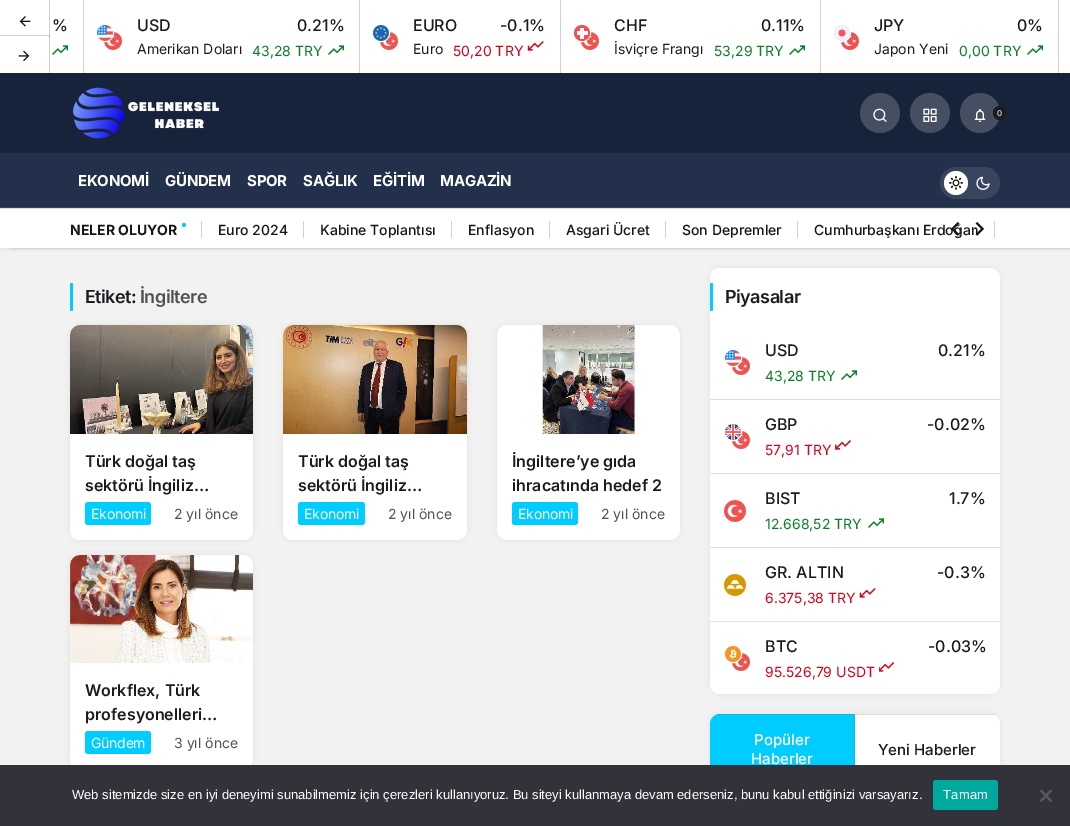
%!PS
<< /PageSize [1070 826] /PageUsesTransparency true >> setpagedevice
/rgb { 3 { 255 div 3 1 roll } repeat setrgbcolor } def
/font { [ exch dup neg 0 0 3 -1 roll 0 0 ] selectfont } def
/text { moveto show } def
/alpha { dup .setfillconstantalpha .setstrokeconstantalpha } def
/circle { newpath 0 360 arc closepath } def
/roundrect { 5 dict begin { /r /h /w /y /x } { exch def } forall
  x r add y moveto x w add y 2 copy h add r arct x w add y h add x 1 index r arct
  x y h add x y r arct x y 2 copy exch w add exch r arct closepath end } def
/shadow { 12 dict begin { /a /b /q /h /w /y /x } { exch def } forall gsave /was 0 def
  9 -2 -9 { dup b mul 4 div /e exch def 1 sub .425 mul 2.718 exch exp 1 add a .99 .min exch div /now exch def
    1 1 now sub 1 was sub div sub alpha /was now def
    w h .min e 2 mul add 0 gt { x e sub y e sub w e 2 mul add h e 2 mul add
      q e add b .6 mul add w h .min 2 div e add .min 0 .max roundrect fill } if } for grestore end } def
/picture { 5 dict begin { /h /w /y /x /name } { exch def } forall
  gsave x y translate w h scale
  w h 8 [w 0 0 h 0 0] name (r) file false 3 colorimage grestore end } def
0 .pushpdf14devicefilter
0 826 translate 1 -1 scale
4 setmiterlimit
242 242 243 rgb
0 0 1070 826 rectfill
255 255 255 rgb
0 0 1070 73 rectfill
206 208 212 rgb
49 0 1 38 rectfill
(img_01.rgb) 19 16 12 11 picture
83 0 1 73 rectfill
(img_02.rgb) 52 45 16 10 picture
359 0 1 73 rectfill
(img_04.rgb) 104 32 18 18 picture
255 255 255 rgb
105 33 8.5 circle stroke
(img_03.rgb) 97 25 16 16 picture
(img_02.rgb) 328 45 16 10 picture
206 208 212 rgb
560 0 1 73 rectfill
(img_04.rgb) 380 32 18 18 picture
255 255 255 rgb
381 33 8.5 circle stroke
(img_05.rgb) 373 25 16 16 picture
(img_06.rgb) 527 41 17 10 picture
206 208 212 rgb
820 0 1 73 rectfill
(img_04.rgb) 581 32 18 18 picture
255 255 255 rgb
582 33 8.5 circle stroke
239 83 80 rgb
582 33 8 circle fill
248 249 253 rgb
577 31 11 4 rectfill
580 28 4 11 rectfill
(img_02.rgb) 789 45 16 10 picture
206 208 212 rgb
1058 0 1 73 rectfill
(img_04.rgb) 841 32 18 18 picture
255 255 255 rgb
842 33 8.5 circle stroke
(img_07.rgb) 834 25 16 16 picture
(img_02.rgb) 1027 45 16 10 picture
206 208 212 rgb
0 35 moveto 50 0 rlineto -1 1 rlineto -49 0 rlineto closepath fill
0.3 alpha
91 97 110 rgb
50 35 moveto 0 38 rlineto -1 0 rlineto 0 -37 rlineto closepath fill
1 alpha
(img_08.rgb) 18 50 12 12 picture
23 35 58 rgb
0 73 1070 80 rectfill
(img_09.rgb) 72 87 148 52 picture
69 79 97 rgb
880 113 20 circle fill
(img_10.rgb) 873 108 14 14 picture
930 113 20 circle fill
(img_11.rgb) 923 108 14 14 picture
980 113 20 circle fill
(img_12.rgb) 974 109 12 13 picture
25 28 32 rgb
993 106 13 14 6.5 roundrect fill
0 0 0 rgb
10 209 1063 40 0 1 0.1 shadow
1 208 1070 40 0 2.5 0.1 shadow
34 48 76 rgb
0 153 1070 54 rectfill
56 69 94 rgb
940 167 60 32 16 roundrect fill
255 255 255 rgb
956 183 12 circle fill
(img_13.rgb) 949 176 14 14 picture
(img_14.rgb) 976 176 14 14 picture
56 69 94 rgb
0 207 1070 1 rectfill
255 255 255 rgb
0 209 1070 39 rectfill
222 223 226 rgb
0 208 1070 1 rectfill
206 208 212 rgb
201 221 1 17 rectfill
0 205 255 rgb
184 225 2 circle fill
206 208 212 rgb
303 221 1 17 rectfill
451 221 1 17 rectfill
549 221 1 17 rectfill
665 221 1 17 rectfill
797 221 1 17 rectfill
994 221 1 17 rectfill
0 205 255 rgb
70 283 3 28 1.5 roundrect fill
50 53 61 rgb
70 325 183 215 10 2.5 0.1 shadow
255 255 255 rgb
70 325 183 215 10 roundrect fill
230 230 230 rgb
80 325 moveto 163 0 rlineto 5.5 0 10 4.5 10 10 rcurveto 0 99 rlineto -183 0 rlineto 0 -99 rlineto 0 -5.5 4.5 -10 10 -10 rcurveto closepath fill
(img_17.rgb) 70 325 183 109 picture
0 205 255 rgb
85 502 66 23 3 roundrect fill
50 53 61 rgb
283 325 184 215 10 2.5 0.1 shadow
255 255 255 rgb
283 325 184 215 10 roundrect fill
gsave
283 325 184 215 10 roundrect clip newpath
230 230 230 rgb
293 325 moveto 173 0 rlineto 0 109 rlineto -183 0 rlineto 0 -99 rlineto 0 -5.5 4.5 -10 10 -10 rcurveto closepath fill
grestore
(img_18.rgb) 283 325 184 109 picture
0 205 255 rgb
298 502 67 23 3 roundrect fill
50 53 61 rgb
497 325 183 215 10 2.5 0.1 shadow
255 255 255 rgb
497 325 183 215 10 roundrect fill
230 230 230 rgb
507 325 moveto 163 0 rlineto 5.5 0 10 4.5 10 10 rcurveto 0 99 rlineto -183 0 rlineto 0 -99 rlineto 0 -5.5 4.5 -10 10 -10 rcurveto closepath fill
(img_19.rgb) 497 325 183 109 picture
0 205 255 rgb
512 502 66 23 3 roundrect fill
50 53 61 rgb
70 555 183 214 10 2.5 0.1 shadow
255 255 255 rgb
70 555 183 214 10 roundrect fill
230 230 230 rgb
80 555 moveto 163 0 rlineto 5.5 0 10 4.5 10 10 rcurveto 0 98 rlineto -183 0 rlineto 0 -98 rlineto 0 -5.5 4.5 -10 10 -10 rcurveto closepath fill
(img_20.rgb) 70 555 183 108 picture
0 205 255 rgb
85 731 66 23 3 roundrect fill
50 53 61 rgb
710 268 290 426 10 2.5 0.1 shadow
255 255 255 rgb
710 268 290 426 10 roundrect fill
0 205 255 rgb
710 283 3 28 1.5 roundrect fill
222 223 226 rgb
710 399 290 1 rectfill
(img_04.rgb) 732 357 18 18 picture
255 255 255 rgb
733 358 8.5 circle stroke
(img_03.rgb) 725 350 16 16 picture
(img_02.rgb) 841 370 16 10 picture
222 223 226 rgb
710 473 290 1 rectfill
(img_04.rgb) 732 431 18 18 picture
255 255 255 rgb
733 432 8.5 circle stroke
(img_21.rgb) 725 424 16 16 picture
(img_22.rgb) 835 440 16 10 picture
222 223 226 rgb
710 547 290 1 rectfill
(img_23.rgb) 724 500 22 22 picture
(img_02.rgb) 868 518 16 10 picture
710 621 290 1 rectfill
(img_24.rgb) 724 574 22 22 picture
(img_25.rgb) 859 588 17 10 picture
(img_04.rgb) 732 653 18 18 picture
255 255 255 rgb
733 654 8.5 circle stroke
(img_26.rgb) 725 646 16 16 picture
(img_27.rgb) 879 662 16 10 picture
50 53 61 rgb
710 714 290 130 10 2.5 0.1 shadow
255 255 255 rgb
710 714 290 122 10 roundrect fill
0 205 255 rgb
720 714 moveto 135 0 rlineto 0 70 rlineto -145 0 rlineto 0 -60 rlineto 0 -5.5 4.5 -10 10 -10 rcurveto closepath fill
0.2 alpha
91 97 110 rgb
720 714 moveto -4 1 rlineto 138 0 rlineto 1 -1 rlineto closepath fill
855 714 moveto 0 70 rlineto -1 -1 rlineto 0 -68 rlineto closepath fill
gsave
710 714 290 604 10 roundrect clip newpath
855 714 145 1 rectfill
grestore
1 alpha
50 50 58 rgb
0 765 1070 61 rectfill
0 169 157 rgb
933 780 65 30 3 roundrect fill
89 89 93 rgb
1050.5 789.5 moveto 1.5 1.5 rlineto -10.5 11 rlineto -1.5 -1.5 rlineto closepath fill
1040 791 moveto 1.5 -1.5 rlineto 10.5 11 rlineto -1.5 1.5 rlineto closepath fill
/Inter-Medium 16 font
25 28 32 rgb
(%) 52 31 text
(USD) 137 31 text
(0.21%) 297 31 text
/Inter-Regular 14 font
(Amerikan Doları) 137 54 text
15 126 41 rgb
(43,28 TRY) 252 56 text
/Inter-Medium 16 font
25 28 32 rgb
(EURO) 413 31 text
(-0.1%) 500 31 text
/Inter-Regular 14 font
(Euro) 413 54 text
207 6 28 rgb
(50,20 TRY) 453 56 text
/Inter-Medium 16 font
25 28 32 rgb
(CHF) 614 31 text
(0.11%) 761 31 text
/Inter-Regular 14 font
(İsviçre Frangı) 614 54 text
15 126 41 rgb
(53,29 TRY) 714 56 text
/Inter-Medium 16 font
25 28 32 rgb
(JPY) 874 31 text
(0%) 1017 31 text
/Inter-Regular 14 font
(Japon Yeni) 874 54 text
15 126 41 rgb
(0,00 TRY) 959 56 text
/Inter-Regular 8 font
255 255 255 rgb
(0) 997 116 text
/Inter-Bold 15 font
78 186 moveto -0.25 0 (EKONOMİ) ashow
165 186 moveto -0.25 0 (GÜNDEM) ashow
247 186 moveto -0.25 0 (SPOR) ashow
303 186 moveto -0.25 0 (SAĞLIK) ashow
373 186 moveto -0.25 0 (EĞİTİM) ashow
440 186 moveto -0.25 0 (MAGAZİN) ashow
/Inter-Bold 14 font
22 22 22 rgb
(NELER OLUYOR) 70 235 text
/Inter-Medium 14 font
(Euro 2024) 218 235 text
(Kabine Toplantısı) 320 235 text
(Enflasyon) 468 235 text
(Asgari Ücret) 566 235 text
(Son Depremler) 682 235 text
(Cumhurbaşkanı Erdoğan) 814 235 text
(img_15.rgb) 951 222 9 14 picture
(img_16.rgb) 975 222 10 14 picture
/Inter-SemiBold 18 font
25 28 32 rgb
85 303 moveto -0.5 0 (Etiket:) ashow
79 82 85 rgb
140 303 moveto -0.5 0 (İngiltere) ashow
/Inter-SemiBold 16 font
25 28 32 rgb
(Türk doğal taş) 85 467 text
(sektörü İngiliz…) 85 491 text
/Inter-Regular 14 font
255 255 255 rgb
91 519 moveto -0.25 0 (Ekonomi) ashow
79 82 85 rgb
(2 yıl önce) 174 519 text
/Inter-SemiBold 16 font
25 28 32 rgb
(Türk doğal taş) 298 467 text
(sektörü İngiliz…) 298 491 text
/Inter-Regular 14 font
255 255 255 rgb
304 519 moveto -0.25 0 (Ekonomi) ashow
79 82 85 rgb
(2 yıl önce) 388 519 text
/Inter-SemiBold 16 font
25 28 32 rgb
(İngiltere’ye gıda) 512 467 text
(ihracatında hedef 2) 512 491 text
/Inter-Regular 14 font
255 255 255 rgb
518 519 moveto -0.25 0 (Ekonomi) ashow
79 82 85 rgb
(2 yıl önce) 601 519 text
/Inter-SemiBold 16 font
25 28 32 rgb
(Workflex, Türk) 85 696 text
(profesyonelleri…) 85 720 text
/Inter-Regular 14 font
255 255 255 rgb
91 748 moveto -0.25 0 (Gündem) ashow
79 82 85 rgb
(3 yıl önce) 174 748 text
/Inter-SemiBold 18 font
25 28 32 rgb
725 303 moveto -0.5 0 (Piyasalar) ashow
/Inter-Medium 16 font
(USD) 765 356 text
(0.21%) 938 356 text
/Inter-Regular 14 font
15 126 41 rgb
(43,28 TRY) 765 381 text
/Inter-Medium 16 font
25 28 32 rgb
(GBP) 765 430 text
(-0.02%) 927 430 text
/Inter-Regular 14 font
207 6 28 rgb
(57,91 TRY) 765 455 text
/Inter-Medium 16 font
25 28 32 rgb
(BIST) 765 504 text
(1.7%) 949 504 text
/Inter-Regular 14 font
15 126 41 rgb
(12.668,52 TRY) 765 529 text
/Inter-Medium 16 font
25 28 32 rgb
(GR. ALTIN) 765 578 text
(-0.3%) 937 578 text
/Inter-Regular 14 font
207 6 28 rgb
(6.375,38 TRY) 765 603 text
/Inter-Medium 16 font
25 28 32 rgb
(BTC) 765 652 text
(-0.03%) 928 652 text
/Inter-Regular 14 font
207 6 28 rgb
(95.526,79 USDT) 765 677 text
/Inter-Medium 15 font
255 255 255 rgb
(Popüler) 754 745 text
(Haberler) 751 764 text
25 28 32 rgb
(Yeni Haberler) 878 755 text
/LiberationSans-Regular 13 font
255 255 255 rgb
(Web sitemizde size en iyi deneyimi sunabilmemiz için çerezleri kullanıyoruz. Bu siteyi kullanmaya devam ederseniz, bunu kabul ettiğinizi varsayarız.) 72 799 text
943 799 moveto 0.25 0 (Tamam) ashow
.poppdf14devicefilter showpage
